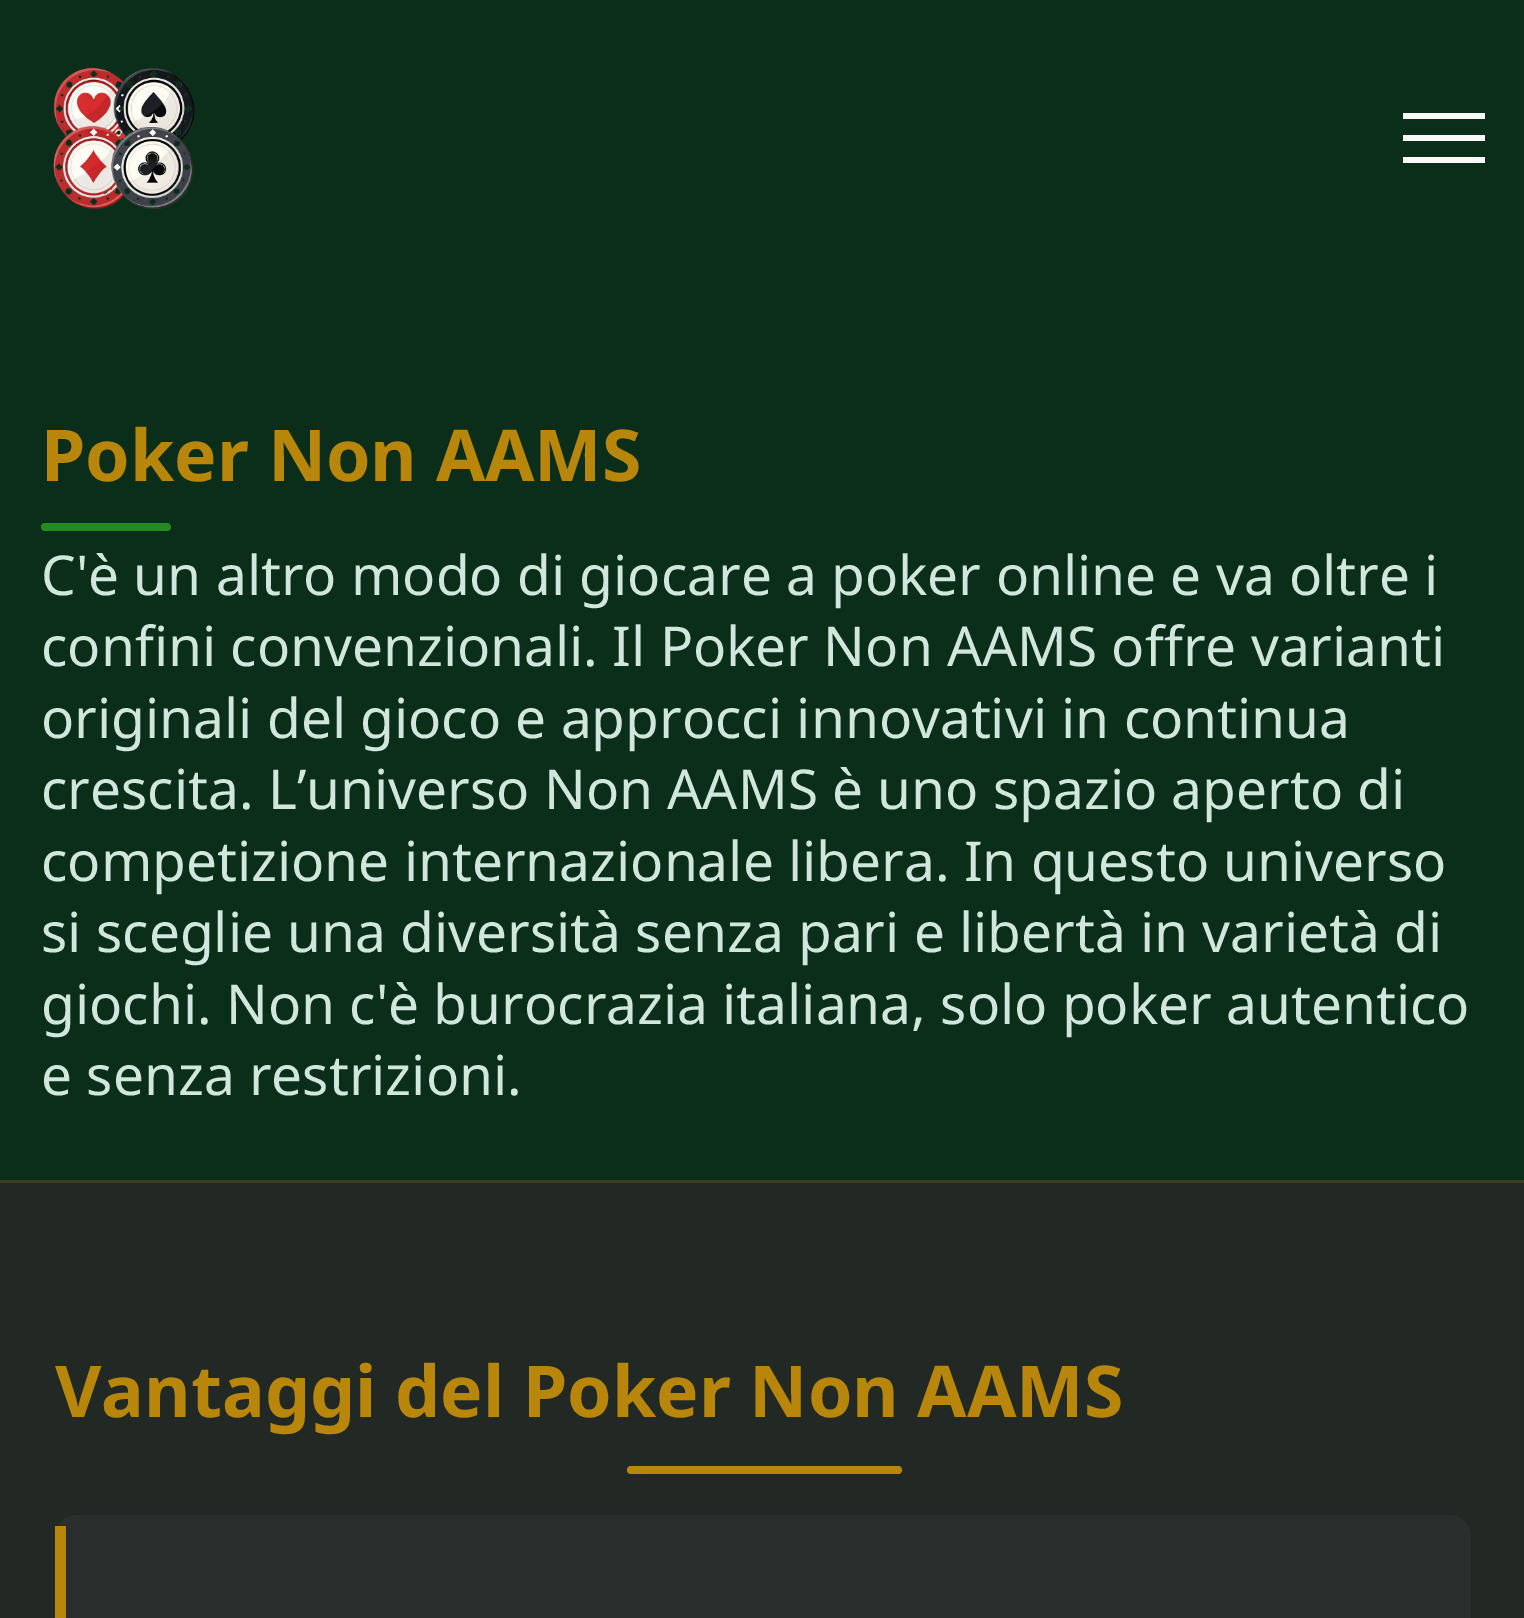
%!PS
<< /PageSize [1524 1618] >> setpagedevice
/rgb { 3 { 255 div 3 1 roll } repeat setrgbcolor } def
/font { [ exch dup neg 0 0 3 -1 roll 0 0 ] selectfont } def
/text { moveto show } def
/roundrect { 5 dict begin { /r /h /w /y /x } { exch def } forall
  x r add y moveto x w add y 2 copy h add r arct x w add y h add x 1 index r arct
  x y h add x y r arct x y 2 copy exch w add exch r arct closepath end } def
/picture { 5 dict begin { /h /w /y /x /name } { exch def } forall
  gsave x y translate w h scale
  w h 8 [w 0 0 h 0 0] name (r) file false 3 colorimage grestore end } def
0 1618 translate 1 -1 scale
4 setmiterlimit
10 46 26 rgb
0 0 1524 1618 rectfill
(img_01.rgb) 53 67 142 143 picture
249 249 249 rgb
1403 113 82 6 rectfill
1403 135 82 6 rectfill
1403 157 82 6 rectfill
34 139 34 rgb
41 523 130 8 4 roundrect fill
34 41 37 rgb
0 1183 1524 435 rectfill
64 60 32 rgb
0 1180 1524 3 rectfill
184 134 11 rgb
627 1466 275 8 4 roundrect fill
42 46 44 rgb
55 1515 1416 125 22 roundrect fill
184 134 11 rgb
55 1526 11 92 rectfill
/NotoSans-Bold 71.5 font
(Poker Non AAMS) 41 481 text
/NotoSans-Regular 55 font
209 231 221 rgb
(C'è un altro modo di giocare a poker online e va oltre i) 41 595 text
(confini convenzionali. Il Poker Non AAMS offre varianti) 41 666 text
(originali del gioco e approcci innovativi in continua) 41 738 text
(crescita. L’universo Non AAMS è uno spazio aperto di) 41 809 text
(competizione internazionale libera. In questo universo) 41 881 text
(si sceglie una diversità senza pari e libertà in varietà di) 41 952 text
(giochi. Non c'è burocrazia italiana, solo poker autentico) 41 1024 text
(e senza restrizioni.) 41 1095 text
/NotoSans-Bold 71.5 font
184 134 11 rgb
(Vantaggi del Poker Non AAMS) 55 1417 text
showpage
